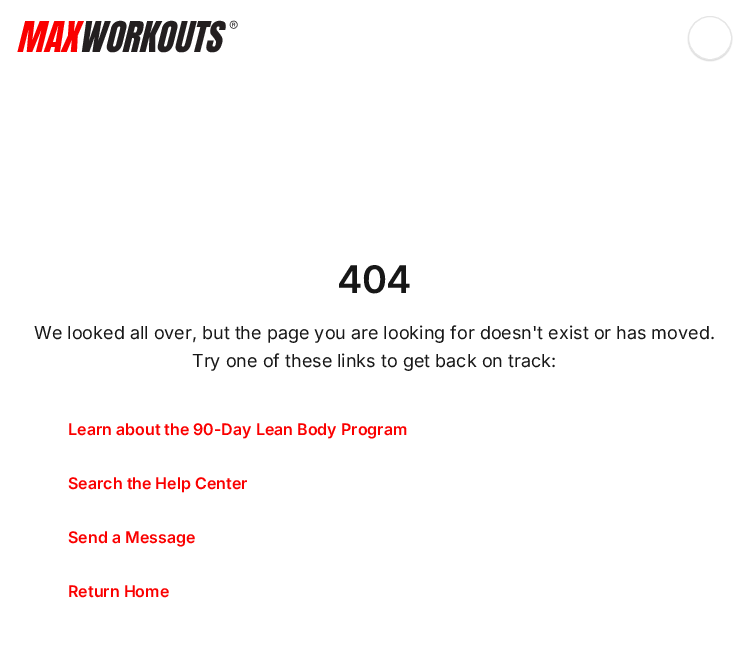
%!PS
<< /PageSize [748 645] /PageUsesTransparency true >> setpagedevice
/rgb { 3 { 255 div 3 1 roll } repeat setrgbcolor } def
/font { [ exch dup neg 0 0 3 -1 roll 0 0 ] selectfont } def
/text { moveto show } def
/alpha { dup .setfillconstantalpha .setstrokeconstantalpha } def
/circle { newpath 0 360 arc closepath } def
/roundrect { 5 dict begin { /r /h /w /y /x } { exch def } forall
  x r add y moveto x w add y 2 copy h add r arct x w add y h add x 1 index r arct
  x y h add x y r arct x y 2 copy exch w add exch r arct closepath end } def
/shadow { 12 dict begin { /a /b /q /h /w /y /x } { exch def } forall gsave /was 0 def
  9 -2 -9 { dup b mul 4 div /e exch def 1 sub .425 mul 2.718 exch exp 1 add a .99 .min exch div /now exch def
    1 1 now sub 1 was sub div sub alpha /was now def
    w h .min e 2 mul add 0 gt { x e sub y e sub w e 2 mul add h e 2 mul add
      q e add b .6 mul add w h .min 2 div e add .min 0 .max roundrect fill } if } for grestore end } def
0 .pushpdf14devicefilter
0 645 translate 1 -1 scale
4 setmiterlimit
255 255 255 rgb
0 0 748 645 rectfill
gsave
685 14 moveto 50 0 rlineto 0 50 rlineto -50 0 rlineto closepath 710 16 moveto 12 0 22 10 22 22 rcurveto 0 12 -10 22 -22 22 rcurveto -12 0 -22 -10 -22 -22 rcurveto 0 -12 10 -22 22 -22 rcurveto closepath eoclip newpath
0 0 0 rgb
688 17 44 44 22 0.5 0.15 shadow
grestore
710 38 21.5 circle gsave fill grestore
229 229 229 rgb
stroke
/Anton-Italic 36 font
250 0 0 rgb
(MAX) 16 52 text
35 31 32 rgb
(WORKOUTS) 78 52 text
/Inter-Light 14 font
(®) 229 31 text
/Inter-SemiBold 38 font
23 23 23 rgb
337 293 moveto -0.5 0 (404) ashow
/Inter-Regular 18 font
(We looked all over, but the page you are looking for doesn't exist or has moved.) 34 339 text
(Try one of these links to get back on track:) 192 367 text
/Inter-SemiBold 16 font
250 0 0 rgb
(Learn about the 90-Day Lean Body Program) 68 435 text
(Search the Help Center) 68 489 text
(Send a Message) 68 543 text
(Return Home) 68 597 text
.poppdf14devicefilter showpage
